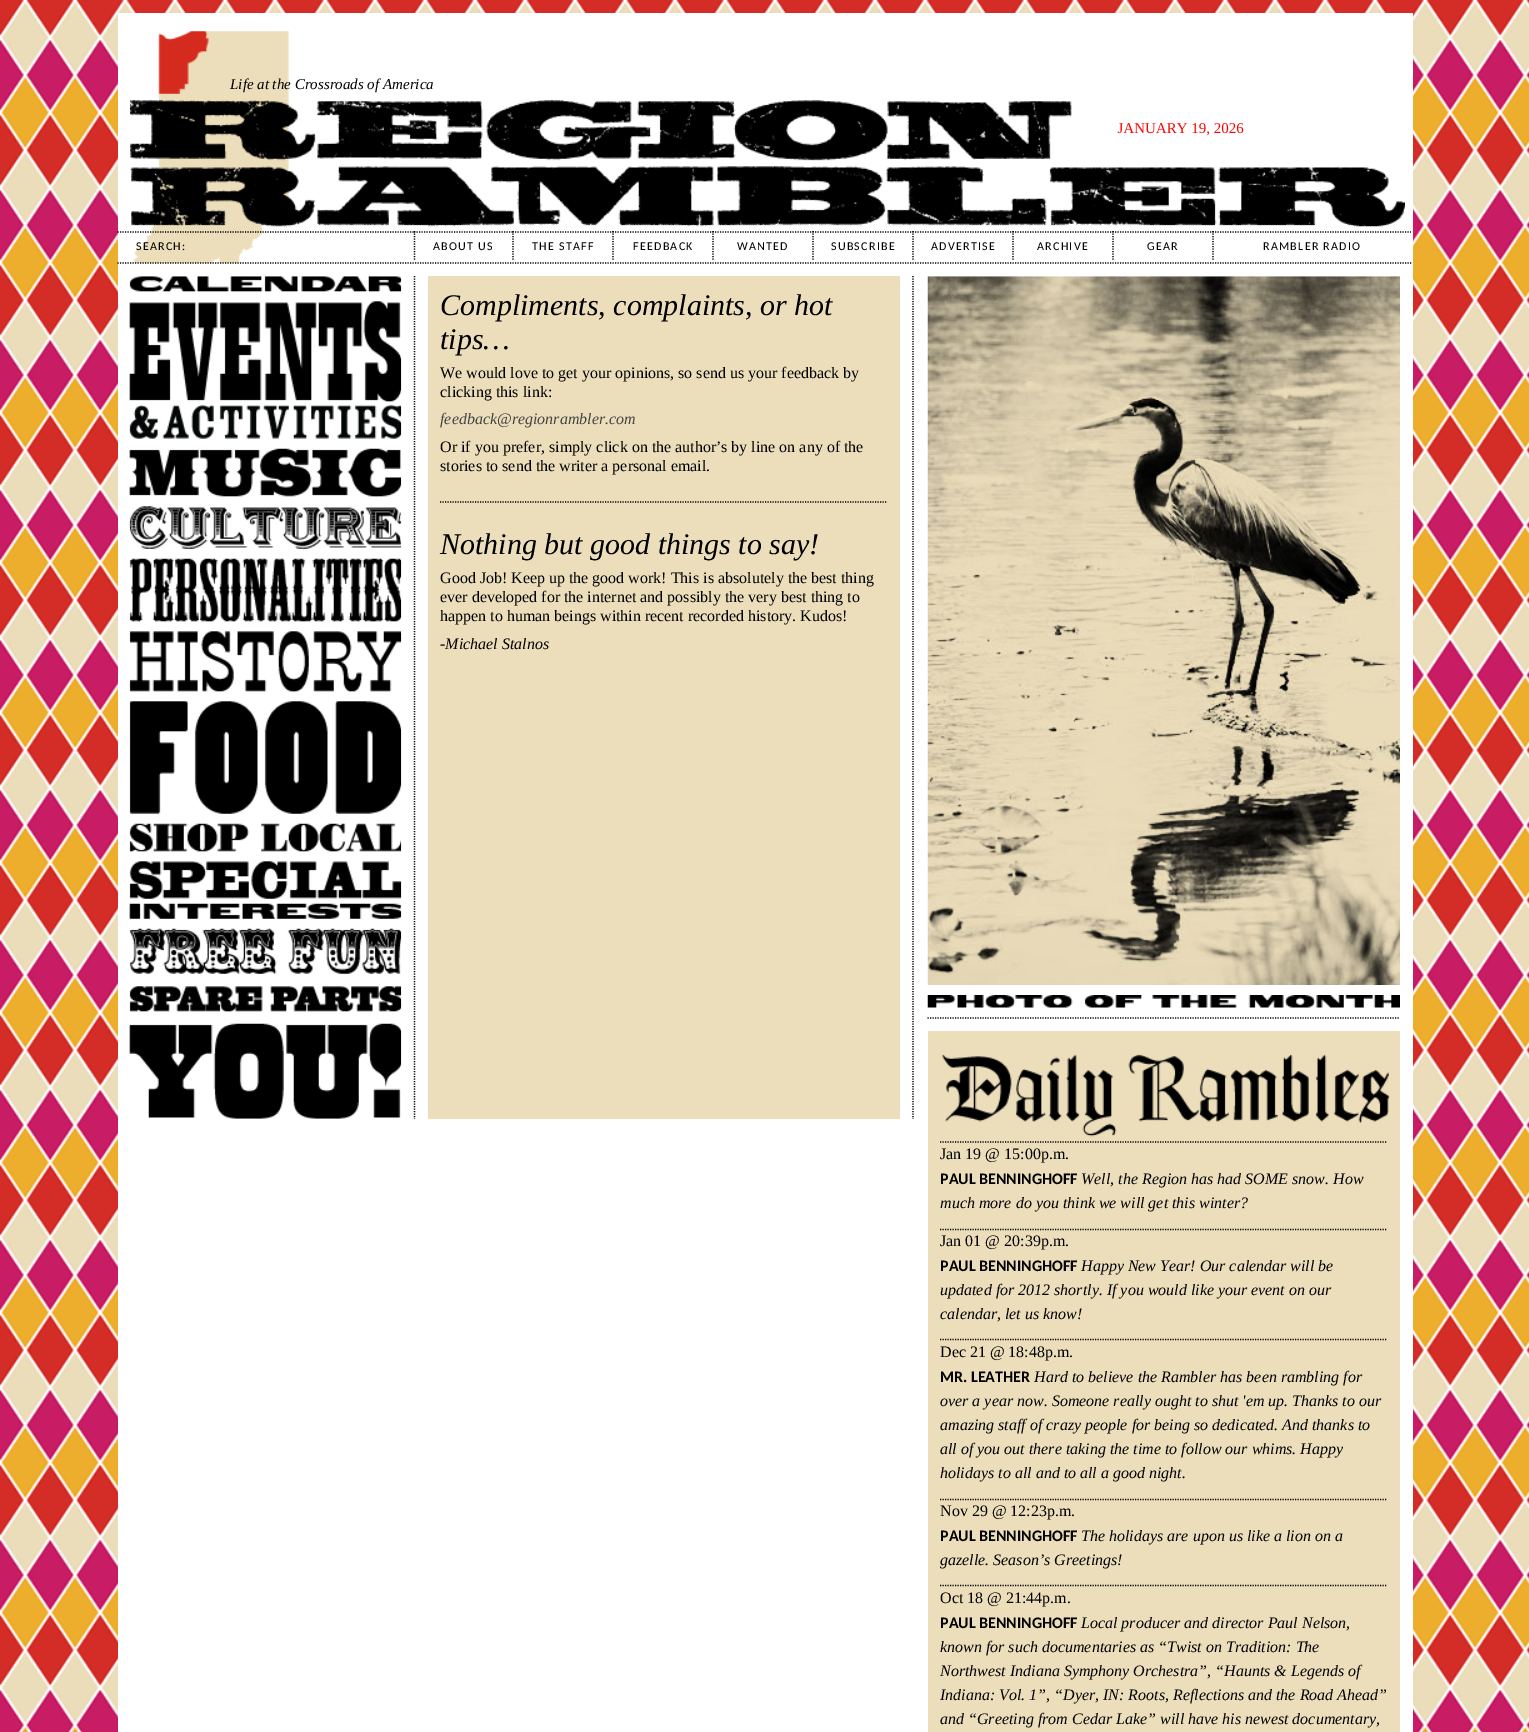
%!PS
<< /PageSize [1529 1732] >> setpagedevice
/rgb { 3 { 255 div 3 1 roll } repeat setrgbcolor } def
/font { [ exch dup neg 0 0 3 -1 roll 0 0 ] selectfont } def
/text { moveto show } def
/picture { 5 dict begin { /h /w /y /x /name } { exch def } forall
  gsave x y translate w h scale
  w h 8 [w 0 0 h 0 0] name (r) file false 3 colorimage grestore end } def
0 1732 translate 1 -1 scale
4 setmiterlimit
255 255 255 rgb
0 0 1529 1732 rectfill
(img_01.rgb) 0 0 1529 1732 picture
118 13 1295 1719 rectfill
(img_02.rgb) 132 31 157 232 picture
0 0 0 rgb
1.2 setlinewidth
[1.25 1.25] 0 setdash
414 232 moveto 98.5 0 rlineto stroke
414.5 231 moveto 0 29 rlineto stroke
117.5 232 moveto 296.5 0 rlineto stroke
512.5 232 moveto 100 0 rlineto stroke
513 231 moveto 0 29 rlineto stroke
612.5 232 moveto 100 0 rlineto stroke
613 231 moveto 0 29 rlineto stroke
712.5 232 moveto 100 0 rlineto stroke
713 231 moveto 0 29 rlineto stroke
812.5 232 moveto 100 0 rlineto stroke
813 231 moveto 0 29 rlineto stroke
912.5 232 moveto 100 0 rlineto stroke
913 231 moveto 0 29 rlineto stroke
1012.5 232 moveto 100 0 rlineto stroke
1013 231 moveto 0 29 rlineto stroke
1112.5 232 moveto 100 0 rlineto stroke
1113 231 moveto 0 29 rlineto stroke
1212.5 232 moveto 198.5 0 rlineto stroke
1213 231 moveto 0 29 rlineto stroke
117.5 263 moveto 1295 0 rlineto stroke
414.5 276 moveto 0 843 rlineto stroke
(img_04.rgb) 129 276 273 843 picture
913 276 moveto 0 843 rlineto stroke
236 222 187 rgb
428 276 472 843 rectfill
0 0 0 rgb
440 502 moveto 447.5 0 rlineto stroke
927.5 1018 moveto 472.5 0 rlineto stroke
(img_05.rgb) 927 276 473 709 picture
(img_06.rgb) 927 995 473 13 picture
236 222 187 rgb
928 1031 472 701 rectfill
(img_07.rgb) 942 1054 448 83 picture
0 0 0 rgb
940 1142 moveto 447.5 0 rlineto stroke
940 1229.5 moveto 447.5 0 rlineto stroke
940 1339.5 moveto 447.5 0 rlineto stroke
940 1499.5 moveto 447.5 0 rlineto stroke
940 1585.5 moveto 447.5 0 rlineto stroke
/LiberationSerif-Italic 15 font
(Life at the Crossroads of America) 230 89 text
/LiberationSerif-Regular 15 font
255 0 0 rgb
(JANUARY 19, 2026) 1118 133 text
(img_03.rgb) 130 100 1275 127 picture
/Carlito-Regular 12 font
0 0 0 rgb
136 250 moveto 1.25 0 (SEARCH:) ashow
433 250 moveto 1.25 0 (ABOUT US) ashow
532 250 moveto 1.25 0 (THE STAFF) ashow
633 250 moveto 1.25 0 (FEEDBACK) ashow
737 250 moveto 1.25 0 (WANTED) ashow
831 250 moveto 1.25 0 (SUBSCRIBE) ashow
931 250 moveto 1.25 0 (ADVERTISE) ashow
1037 250 moveto 1.25 0 (ARCHIVE) ashow
1147 250 moveto 1.25 0 (GEAR) ashow
1263 250 moveto 1.25 0 (RAMBLER RADIO) ashow
/LiberationSerif-Italic 30 font
(Compliments, complaints, or hot) 440 315 text
(tips…) 440 349 text
/LiberationSerif-Regular 16 font
(We would love to get your opinions, so send us your feedback by) 440 378 text
(clicking this link:) 440 397 text
/LiberationSerif-Italic 16 font
68 68 68 rgb
(feedback@regionrambler.com) 440 424 text
/LiberationSerif-Regular 16 font
0 0 0 rgb
(Or if you prefer, simply click on the author’s by line on any of the) 440 452 text
(stories to send the writer a personal email.) 440 471 text
/LiberationSerif-Italic 30 font
(Nothing but good things to say!) 440 554 text
/LiberationSerif-Regular 16 font
(Good Job! Keep up the good work! This is absolutely the best thing) 440 583 text
(ever developed for the internet and possibly the very best thing to) 440 602 text
(happen to human beings within recent recorded history. Kudos!) 440 621 text
/LiberationSerif-Italic 16 font
(-Michael Stalnos) 440 649 text
/LiberationSerif-Regular 16 font
(Jan 19 @ 15:00p.m.) 940 1159 text
/Carlito-Bold 16 font
(PAUL BENNINGHOFF) 940 1184 text
/LiberationSerif-Italic 16 font
(Well, the Region has had SOME snow. How) 1081 1184 text
(much more do you think we will get this winter?) 940 1208 text
/LiberationSerif-Regular 16 font
(Jan 01 @ 20:39p.m.) 940 1246 text
/Carlito-Bold 16 font
(PAUL BENNINGHOFF) 940 1271 text
/LiberationSerif-Italic 16 font
(Happy New Year! Our calendar will be) 1081 1271 text
(updated for 2012 shortly. If you would like your event on our) 940 1295 text
(calendar, let us know!) 940 1319 text
/LiberationSerif-Regular 16 font
(Dec 21 @ 18:48p.m.) 940 1357 text
/Carlito-Bold 16 font
(MR. LEATHER) 940 1382 text
/LiberationSerif-Italic 16 font
(Hard to believe the Rambler has been rambling for) 1034 1382 text
(over a year now. Someone really ought to shut 'em up. Thanks to our) 940 1406 text
(amazing staff of crazy people for being so dedicated. And thanks to) 940 1430 text
(all of you out there taking the time to follow our whims. Happy) 940 1454 text
(holidays to all and to all a good night.) 940 1478 text
/LiberationSerif-Regular 16 font
(Nov 29 @ 12:23p.m.) 940 1516 text
/Carlito-Bold 16 font
(PAUL BENNINGHOFF) 940 1541 text
/LiberationSerif-Italic 16 font
(The holidays are upon us like a lion on a) 1081 1541 text
(gazelle. Season’s Greetings!) 940 1565 text
/LiberationSerif-Regular 16 font
(Oct 18 @ 21:44p.m.) 940 1603 text
/Carlito-Bold 16 font
(PAUL BENNINGHOFF) 940 1628 text
/LiberationSerif-Italic 16 font
(Local producer and director Paul Nelson,) 1081 1628 text
(known for such documentaries as “Twist on Tradition: The) 940 1652 text
(Northwest Indiana Symphony Orchestra”, “Haunts & Legends of) 940 1676 text
(Indiana: Vol. 1”, “Dyer, IN: Roots, Reflections and the Road Ahead”) 940 1700 text
(and “Greeting from Cedar Lake” will have his newest documentary,) 940 1724 text
showpage
